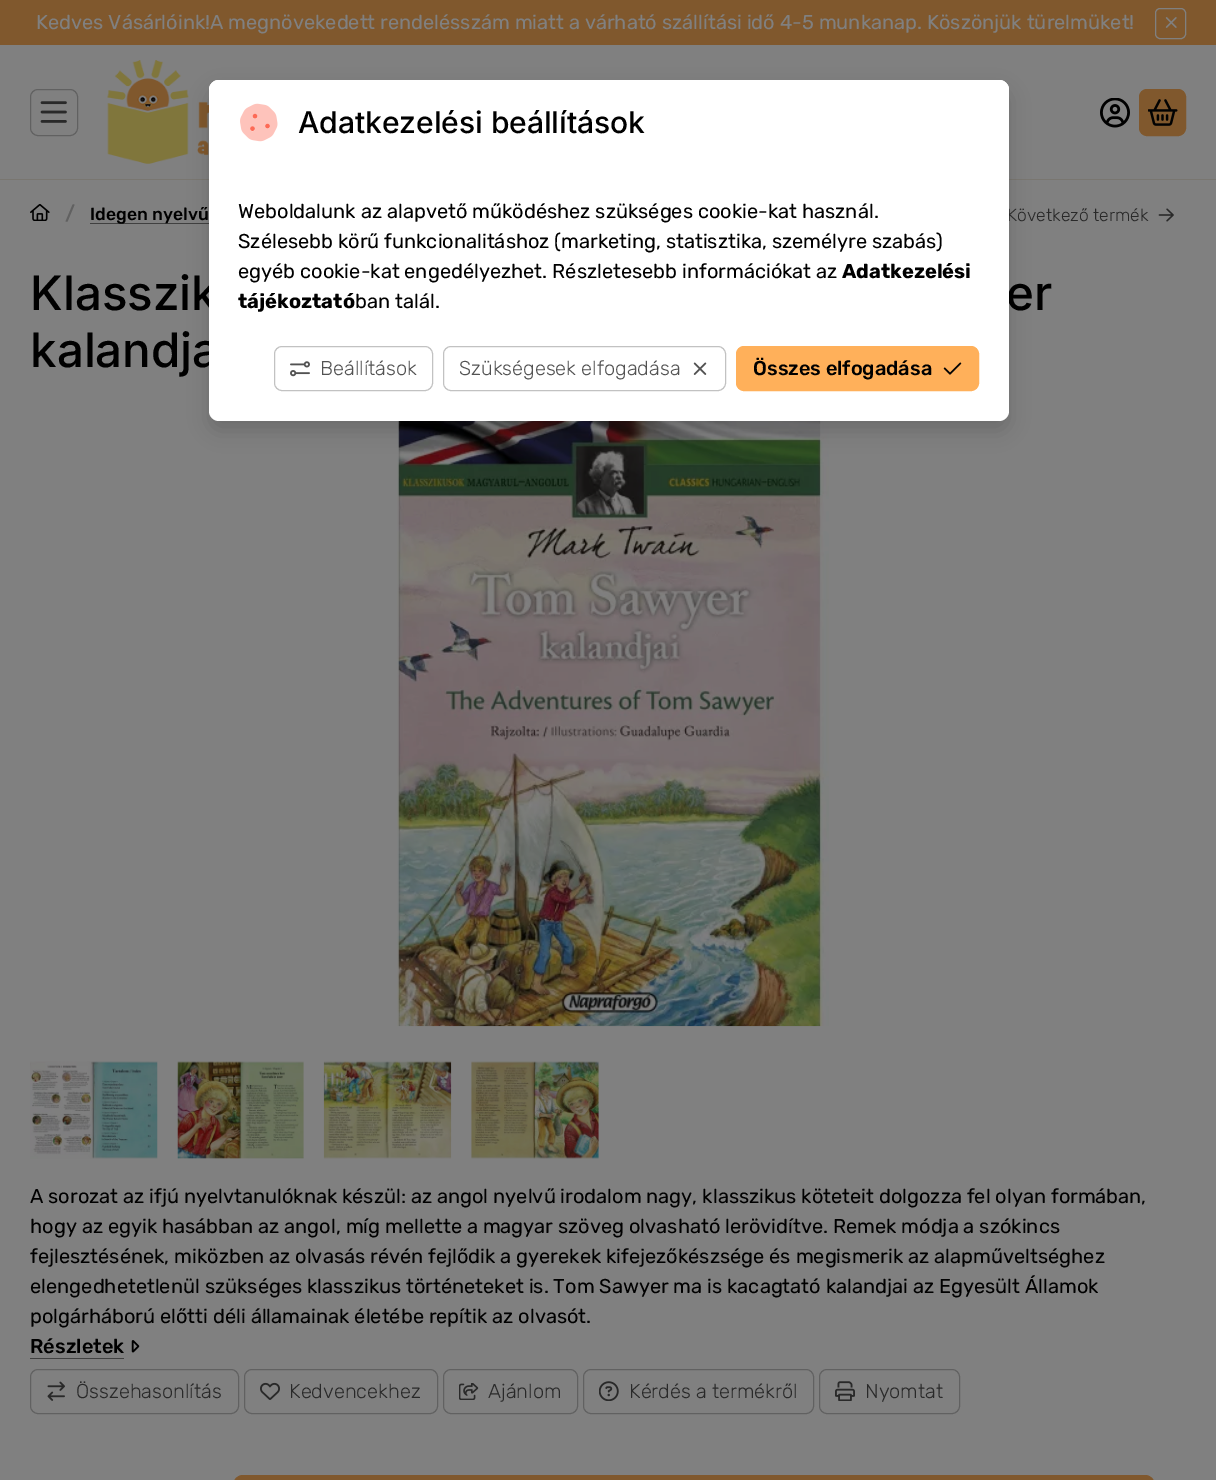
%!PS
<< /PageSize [1216 1480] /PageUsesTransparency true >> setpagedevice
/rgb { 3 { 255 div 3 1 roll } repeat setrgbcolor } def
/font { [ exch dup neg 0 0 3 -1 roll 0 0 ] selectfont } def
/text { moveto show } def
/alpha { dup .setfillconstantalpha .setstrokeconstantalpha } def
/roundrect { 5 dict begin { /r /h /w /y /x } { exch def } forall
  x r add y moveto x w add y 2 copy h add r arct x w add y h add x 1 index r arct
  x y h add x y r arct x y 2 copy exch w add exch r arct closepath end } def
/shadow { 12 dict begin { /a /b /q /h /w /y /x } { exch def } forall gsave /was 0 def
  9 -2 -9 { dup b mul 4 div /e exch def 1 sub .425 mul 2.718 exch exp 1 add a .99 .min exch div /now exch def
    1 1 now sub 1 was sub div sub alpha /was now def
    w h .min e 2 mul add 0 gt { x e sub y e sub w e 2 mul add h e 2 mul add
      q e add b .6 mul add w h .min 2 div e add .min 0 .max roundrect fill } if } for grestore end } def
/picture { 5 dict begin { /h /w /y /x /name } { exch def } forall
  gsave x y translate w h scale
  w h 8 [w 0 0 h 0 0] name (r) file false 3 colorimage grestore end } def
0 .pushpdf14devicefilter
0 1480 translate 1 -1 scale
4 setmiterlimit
128 128 128 rgb
0 0 1216 1480 rectfill
128 88 45 rgb
0 0 1216 45 rectfill
128 128 128 rgb
1155.5 8.5 30 30 4.5 roundrect stroke
(img_01.rgb) 1165 17 12 11 picture
121 118 112 rgb
0 179 1216 1 rectfill
97 97 97 rgb
30.5 89.5 47 46 7.5 roundrect stroke
(img_02.rgb) 40 101 27 22 picture
(img_03.rgb) 107 60 102 104 picture
(img_04.rgb) 1100 98 30 30 picture
128 88 45 rgb
1139.5 89.5 46 46 7.5 roundrect gsave fill grestore
stroke
(img_05.rgb) 1148 99 30 27 picture
64 64 64 rgb
90 223 119 1 rectfill
(img_12.rgb) 397 421 432 606 picture
0 0 0 rgb
209 90 800 341 10 10 0.15 shadow
(img_10.rgb) 30 204 20 17 picture
(img_11.rgb) 1158 208 16 14 picture
(img_13.rgb) 30 1061 128 98 picture
(img_14.rgb) 177 1061 127 98 picture
(img_15.rgb) 323 1060 129 99 picture
(img_16.rgb) 471 1061 128 98 picture
64 64 64 rgb
30 1358 94 1 rectfill
(img_17.rgb) 131 1340 9 13 picture
97 97 97 rgb
30.5 1369.5 208 44 7.5 roundrect stroke
(img_18.rgb) 47 1381 18 20 picture
244.5 1369.5 193 44 7.5 roundrect stroke
(img_19.rgb) 260 1382 20 18 picture
443.5 1369.5 134 44 7.5 roundrect stroke
(img_20.rgb) 459 1383 20 17 picture
583.5 1369.5 230 44 7.5 roundrect stroke
(img_21.rgb) 599 1381 20 20 picture
819.5 1369.5 140 44 7.5 roundrect stroke
(img_22.rgb) 835 1381 20 20 picture
128 88 45 rgb
233.5 1475.5 921 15 9.5 roundrect gsave fill grestore
stroke
/Rubik-Regular 20 font
128 128 128 rgb
(Kedves Vásárlóink!A megnövekedett rendelésszám miatt a várható szállítási idő 4-5 munkanap. Köszönjük türelmüket!) 36 29 text
/Rubik-Medium 20 font
97 97 97 rgb
(/) 65 220 text
/Rubik-Medium 17.5 font
0 0 0 rgb
(Idegen nyelvű) 90 220 text
/Rubik-Light 17.5 font
41 41 41 rgb
(Következő termék) 1007 221 text
/Inter-Medium 47.5 font
0 0 0 rgb
(Klasszik) 30 310 text
(er) 1006 310 text
(kalandja) 30 367 text
255 255 255 rgb
209 80 800 341 10 roundrect fill
255 176 90 rgb
736.5 346.5 242 44 7.5 roundrect gsave fill grestore
stroke
(img_09.rgb) 943 362 19 13 picture
194 194 194 rgb
443.5 346.5 282 44 7.5 roundrect stroke
(img_08.rgb) 693 362 14 13 picture
274.5 346.5 158 44 7.5 roundrect stroke
(img_07.rgb) 290 361 20 16 picture
/Rubik-Medium 20 font
0 0 0 rgb
(Összes elfogadása) 753 375 text
/Rubik-Light 20 font
82 82 82 rgb
(Szükségesek elfogadása) 459 375 text
(Beállítások) 320 375 text
/Rubik-Regular 20 font
0 0 0 rgb
(ban talál.) 355 308 text
/Rubik-Bold 20 font
(tájékoztató) 238 308 text
(Adatkezelési) 842 278 text
/Rubik-Regular 20 font
(egyéb cookie-kat engedélyezhet. Részletesebb információkat az) 238 278 text
(Szélesebb körű funkcionalitáshoz \(marketing, statisztika, személyre szabás\)) 238 248 text
(Weboldalunk az alapvető működéshez szükséges cookie-kat használ.) 238 218 text
255 255 255 rgb
219 80 moveto 780 0 rlineto 5.5 0 10 4.5 10 10 rcurveto 0 76 rlineto -800 0 rlineto 0 -76 rlineto 0 -5.5 4.5 -10 10 -10 rcurveto closepath fill
(img_06.rgb) 240 103 38 39 picture
/Inter-Medium 30 font
0 0 0 rgb
(Adatkezelési beállítások) 298 133 text
/Rubik-Regular 20 font
(A sorozat az ifjú nyelvtanulóknak készül: az angol nyelvű irodalom nagy, klasszikus köteteit dolgozza fel olyan formában,) 30 1203 text
(hogy az egyik hasábban az angol, míg mellette a magyar szöveg olvasható lerövidítve. Remek módja a szókincs) 30 1233 text
(fejlesztésének, miközben az olvasás révén fejlődik a gyerekek kifejezőkészsége és megismerik az alapműveltséghez) 30 1263 text
(elengedhetetlenül szükséges klasszikus történeteket is. Tom Sawyer ma is kacagtató kalandjai az Egyesült Államok) 30 1293 text
(polgárháború előtti déli államainak életébe repítik az olvasót.) 30 1323 text
/Rubik-Medium 20 font
(Részletek) 30 1353 text
/Rubik-Light 20 font
41 41 41 rgb
(Összehasonlítás) 76 1398 text
(Kedvencekhez) 289 1398 text
(Ajánlom) 488 1398 text
(Kérdés a termékről) 629 1398 text
(Nyomtat) 865 1398 text
.poppdf14devicefilter showpage
